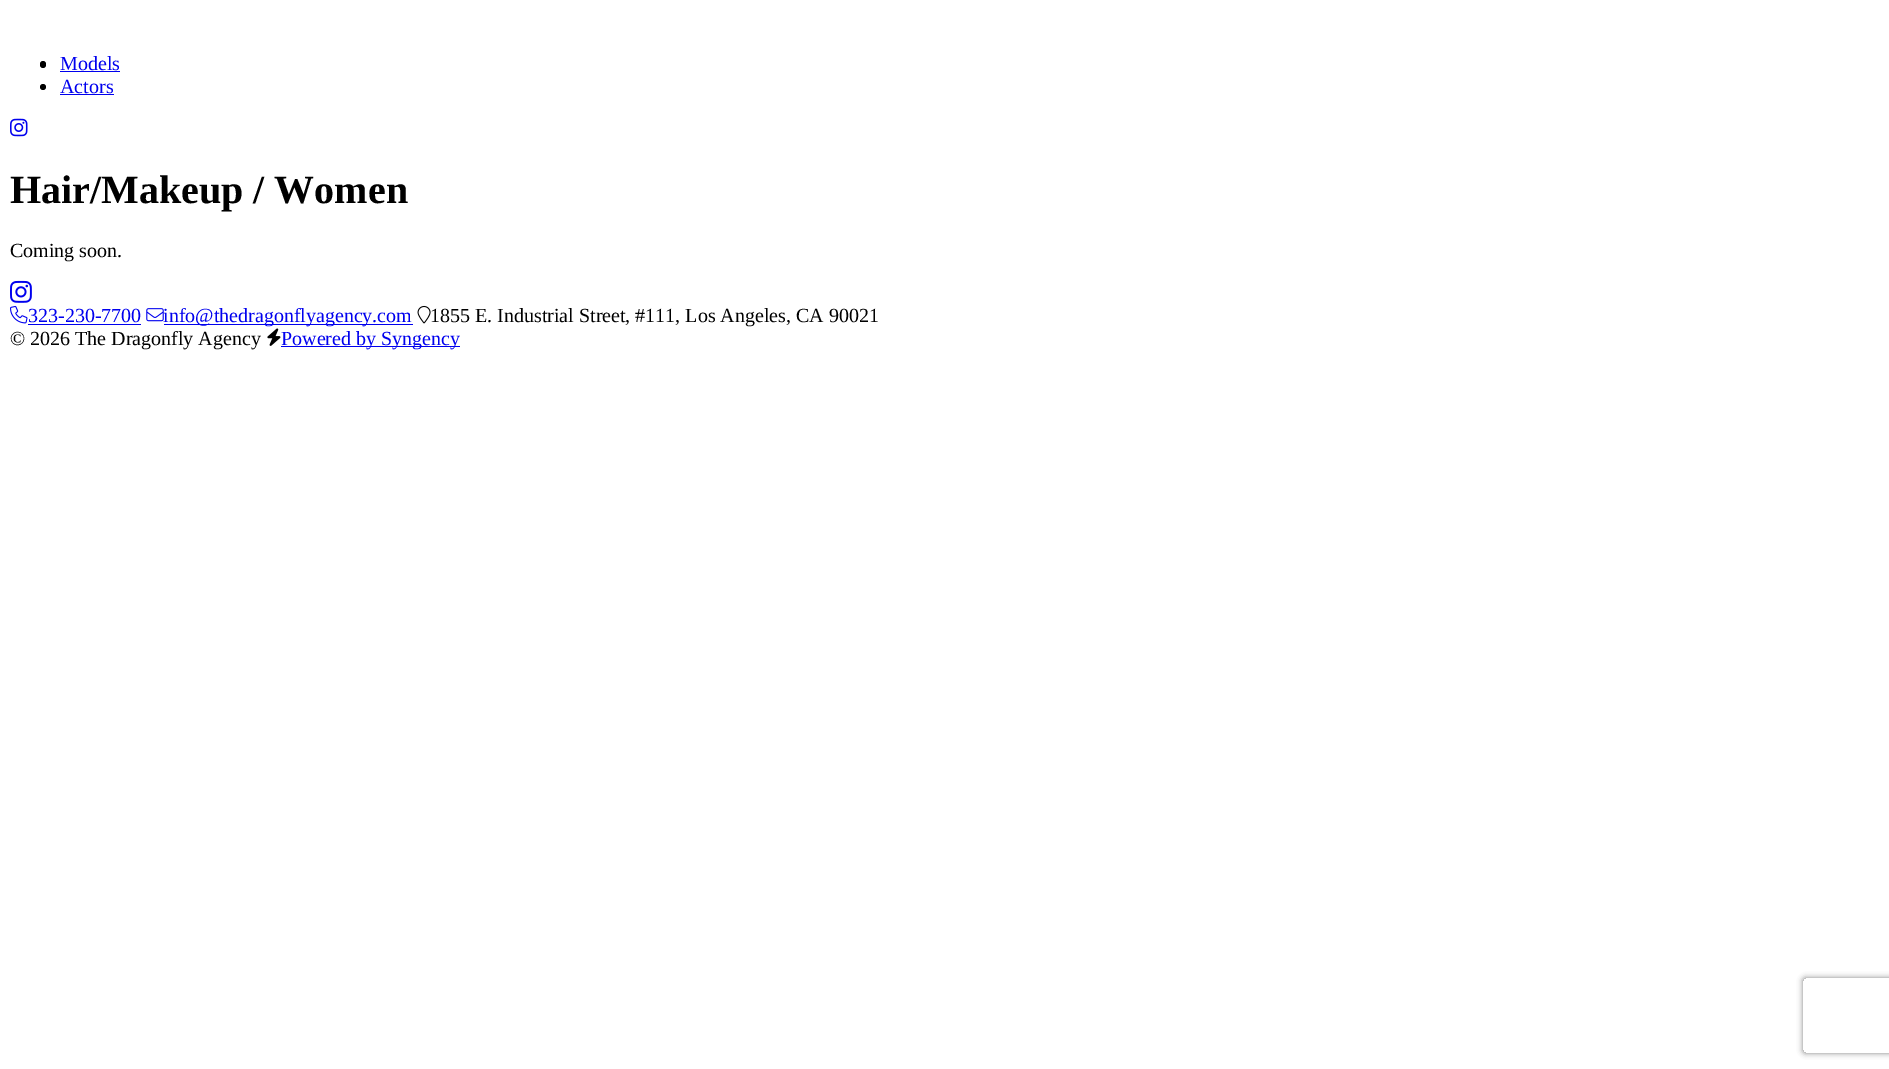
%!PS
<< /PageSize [1889 1069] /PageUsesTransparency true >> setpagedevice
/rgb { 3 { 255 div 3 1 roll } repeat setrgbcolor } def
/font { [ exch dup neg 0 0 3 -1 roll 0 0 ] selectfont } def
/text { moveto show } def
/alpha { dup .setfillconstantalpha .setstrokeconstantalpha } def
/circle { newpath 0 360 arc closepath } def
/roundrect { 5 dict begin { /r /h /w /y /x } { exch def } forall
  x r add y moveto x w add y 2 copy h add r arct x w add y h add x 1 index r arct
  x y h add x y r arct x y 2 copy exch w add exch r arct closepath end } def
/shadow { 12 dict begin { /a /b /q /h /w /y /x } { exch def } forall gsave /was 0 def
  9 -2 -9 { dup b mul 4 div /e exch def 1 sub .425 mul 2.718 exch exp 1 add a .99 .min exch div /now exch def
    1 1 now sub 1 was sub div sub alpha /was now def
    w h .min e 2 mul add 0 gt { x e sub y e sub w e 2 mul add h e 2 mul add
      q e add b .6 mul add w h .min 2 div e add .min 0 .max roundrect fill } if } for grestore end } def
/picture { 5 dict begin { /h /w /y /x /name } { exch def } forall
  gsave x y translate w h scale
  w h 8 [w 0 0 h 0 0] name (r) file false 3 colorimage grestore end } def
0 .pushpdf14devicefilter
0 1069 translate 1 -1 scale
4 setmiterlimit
255 255 255 rgb
0 0 1889 1069 rectfill
0 0 0 rgb
40 61 6 7 3 roundrect fill
0 0 238 rgb
60 71 60 1 rectfill
0 0 0 rgb
43 87 3 circle fill
0 0 238 rgb
60 94 54 1 rectfill
(img_01.rgb) 10 118 18 19 picture
(img_02.rgb) 10 280 22 23 picture
(img_03.rgb) 10 305 18 19 picture
28 324 113 1 rectfill
(img_04.rgb) 146 308 18 14 picture
164 324 249 1 rectfill
(img_05.rgb) 417 305 14 19 picture
(img_06.rgb) 267 328 14 18 picture
281 346 179 1 rectfill
gsave
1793 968 moveto 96 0 rlineto 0 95 rlineto -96 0 rlineto closepath 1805.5 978 moveto 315 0 rlineto 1.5 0 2.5 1 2.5 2.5 rcurveto 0 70 rlineto 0 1.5 -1 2.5 -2.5 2.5 rcurveto -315 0 rlineto -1.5 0 -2.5 -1 -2.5 -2.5 rcurveto 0 -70 rlineto 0 -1.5 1 -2.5 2.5 -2.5 rcurveto closepath eoclip newpath
128 128 128 rgb
1803 978 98 75 2.5 3 1 shadow
grestore
/LiberationSerif-Regular 20 font
(Models) 60 70 text
(Actors) 60 93 text
/LiberationSerif-Bold 40 font
0 0 0 rgb
(Hair/Makeup / Women) 10 203 text
/LiberationSerif-Regular 20 font
(Coming soon.) 10 257 text
0 0 238 rgb
(323-230-7700) 28 322 text
(info@thedragonflyagency.com) 163 322 text
0 0 0 rgb
(1855 E. Industrial Street, #111, Los Angeles, CA 90021) 430 322 text
(© 2026 The Dragonfly Agency) 10 345 text
0 0 238 rgb
(Powered by Syngency) 281 345 text
.poppdf14devicefilter showpage
